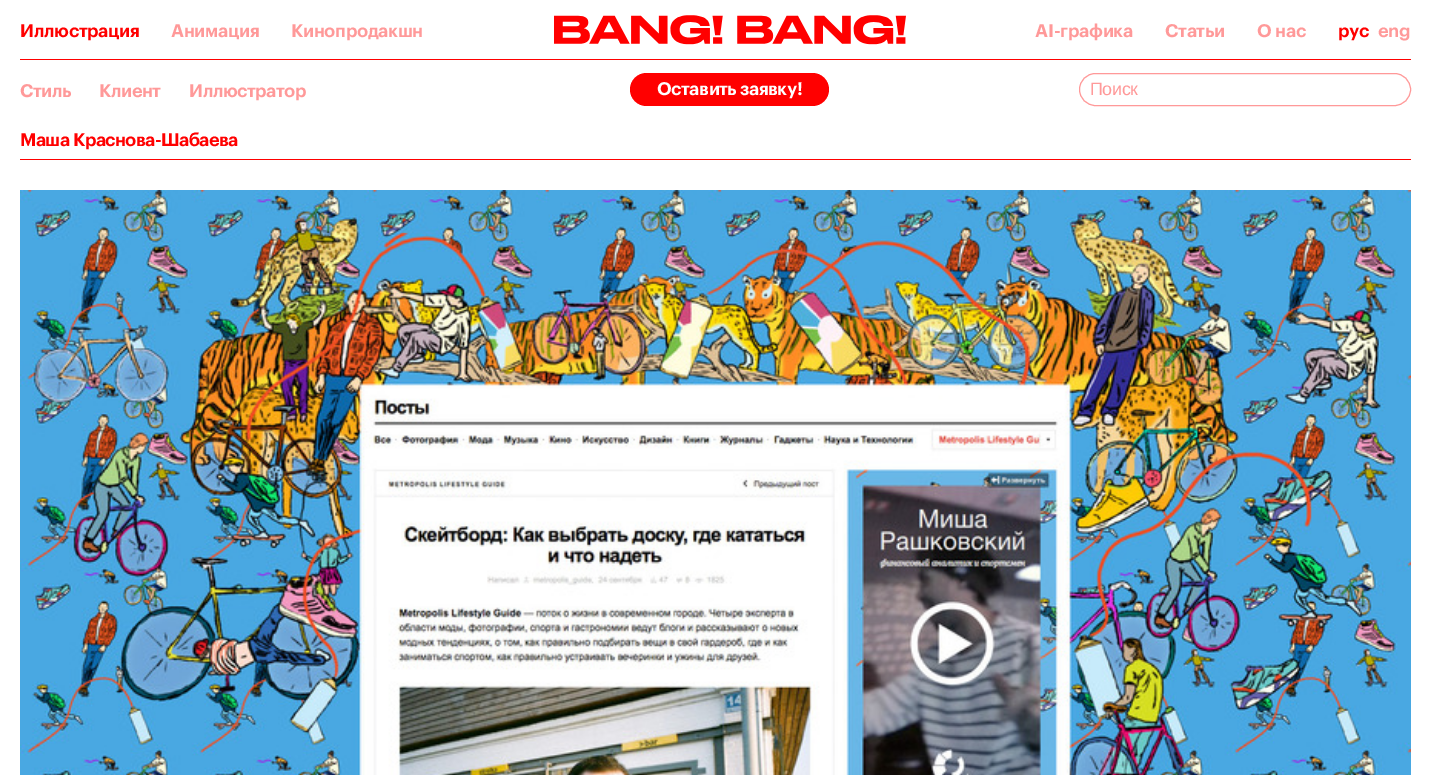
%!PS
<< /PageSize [1431 775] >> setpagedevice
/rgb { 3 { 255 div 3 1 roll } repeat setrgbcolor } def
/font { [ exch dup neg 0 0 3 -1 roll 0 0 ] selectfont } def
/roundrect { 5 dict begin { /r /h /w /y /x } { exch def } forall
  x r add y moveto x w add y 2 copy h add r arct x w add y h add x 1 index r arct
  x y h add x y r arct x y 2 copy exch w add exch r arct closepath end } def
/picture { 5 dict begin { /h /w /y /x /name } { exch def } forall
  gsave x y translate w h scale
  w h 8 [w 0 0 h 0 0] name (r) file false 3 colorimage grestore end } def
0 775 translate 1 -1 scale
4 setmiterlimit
255 255 255 rgb
0 0 1431 775 rectfill
(img_01.rgb) 554 15 352 30 picture
255 0 0 rgb
20 59 1391 1 rectfill
630 73 199 33 16.5 roundrect fill
255 153 153 rgb
1079.5 73.5 331 32 16 roundrect stroke
255 0 0 rgb
20 159 1391 1 rectfill
(img_02.rgb) 20 190 1391 585 picture
/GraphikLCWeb-SemiBold 17.9 font
20 37 moveto -0.25 0 (Иллюстрация) ashow
255 153 153 rgb
171 37 moveto -0.25 0 (Анимация) ashow
291 37 moveto -0.25 0 (Кинопродакшн) ashow
1035 37 moveto -0.25 0 (AI-графика) ashow
1165 37 moveto -0.25 0 (Статьи) ashow
1257 37 moveto -0.25 0 (О нас) ashow
255 0 0 rgb
1338 37 moveto -0.25 0 (рус) ashow
255 153 153 rgb
1378 37 moveto -0.25 0 (eng) ashow
20 97 moveto -0.4 0 (Стиль) ashow
99 97 moveto -0.4 0 (Клиент) ashow
189 97 moveto -0.4 0 (Иллюстратор) ashow
255 255 255 rgb
657 95 moveto -0.4 0 (Оставить заявку!) ashow
/LiberationSans-Regular 17.9 font
255 153 153 rgb
1090 95 moveto -0.4 0 (Поиск) ashow
/GraphikLCWeb-SemiBold 17.9 font
255 0 0 rgb
20 146 moveto -0.5 0 (Маша Краснова-Шабаева) ashow
showpage
